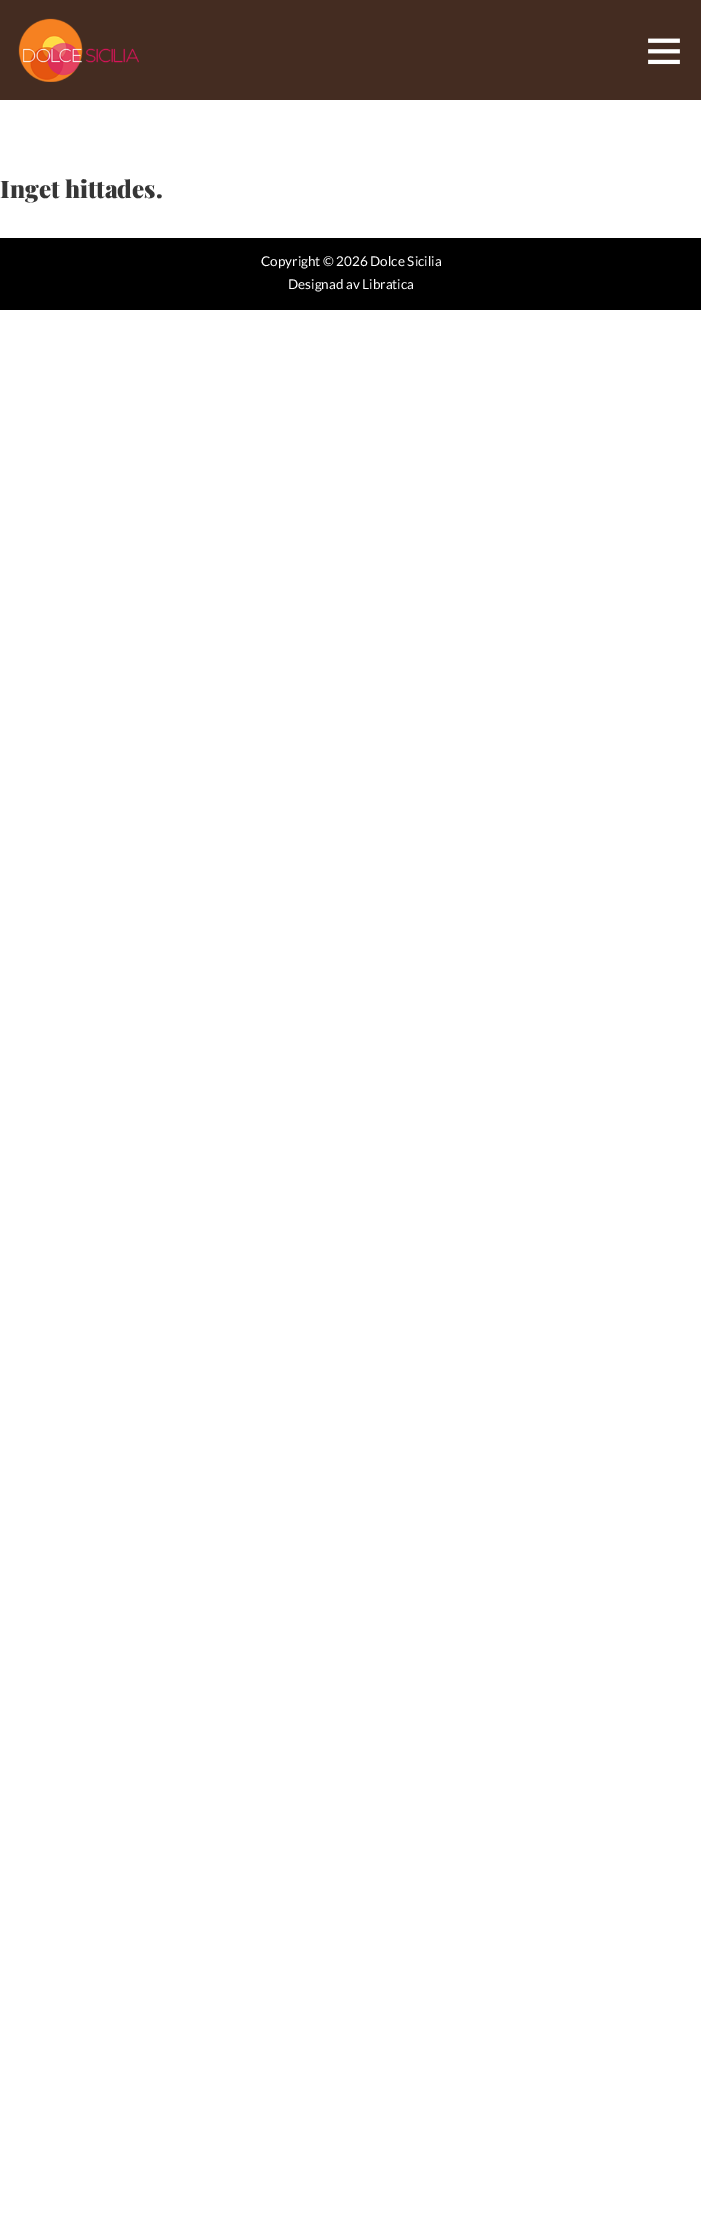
%!PS
<< /PageSize [701 2214] >> setpagedevice
/rgb { 3 { 255 div 3 1 roll } repeat setrgbcolor } def
/font { [ exch dup neg 0 0 3 -1 roll 0 0 ] selectfont } def
/text { moveto show } def
/picture { 5 dict begin { /h /w /y /x /name } { exch def } forall
  gsave x y translate w h scale
  w h 8 [w 0 0 h 0 0] name (r) file false 3 colorimage grestore end } def
0 2214 translate 1 -1 scale
4 setmiterlimit
255 255 255 rgb
0 0 701 2214 rectfill
68 44 33 rgb
0 0 701 100 rectfill
(img_01.rgb) 18 18 121 64 picture
(img_02.rgb) 648 38 32 27 picture
0 0 0 rgb
0 238 701 72 rectfill
/PlayfairDisplay-Black 30 font
54 54 54 rgb
(Inget hittades.) 0 198 text
/Lato-Regular 13.5 font
255 255 255 rgb
(Copyright © 2026 Dolce Sicilia) 261 266 text
(Designad av Libratica) 288 289 text
showpage
